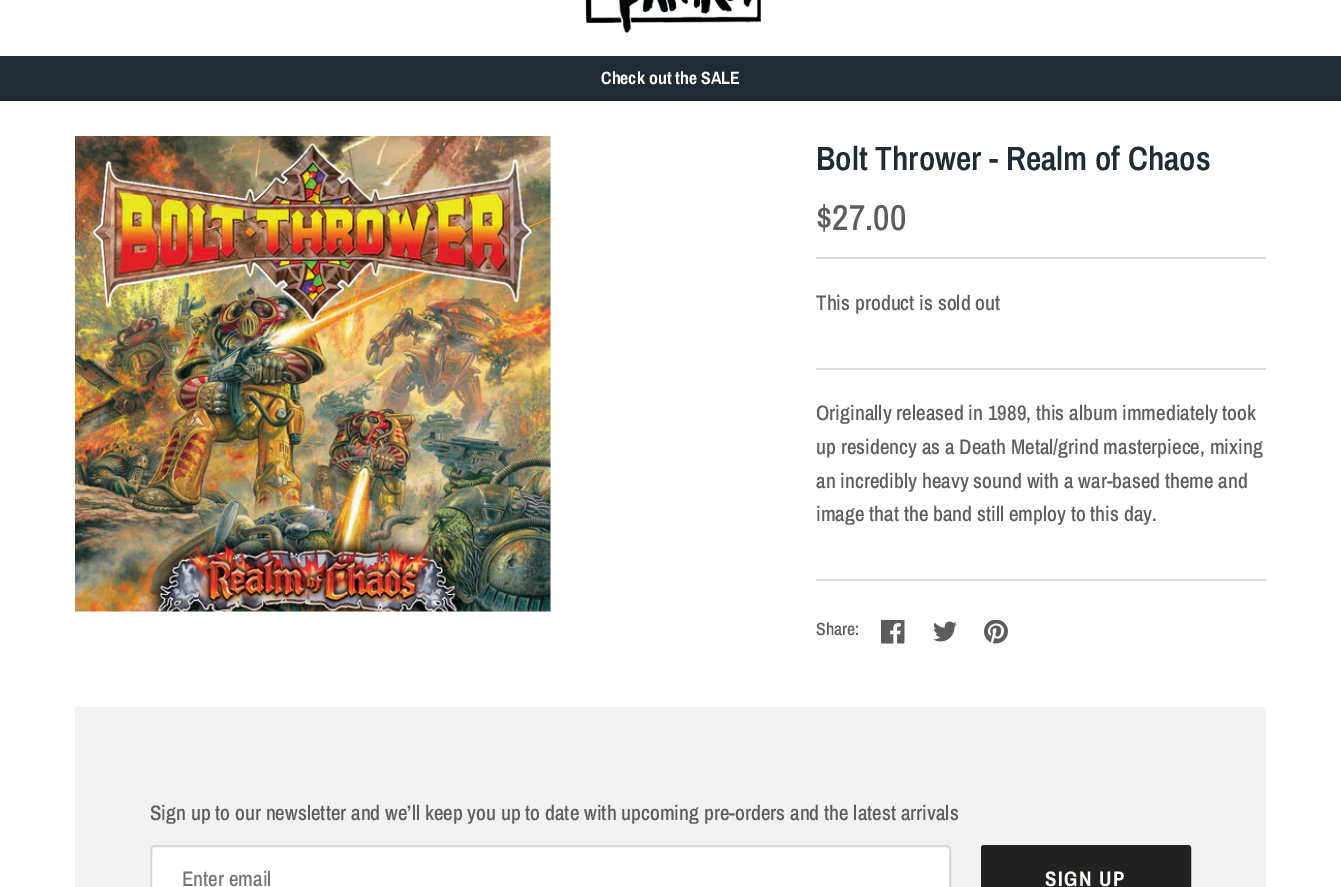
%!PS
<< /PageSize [1341 887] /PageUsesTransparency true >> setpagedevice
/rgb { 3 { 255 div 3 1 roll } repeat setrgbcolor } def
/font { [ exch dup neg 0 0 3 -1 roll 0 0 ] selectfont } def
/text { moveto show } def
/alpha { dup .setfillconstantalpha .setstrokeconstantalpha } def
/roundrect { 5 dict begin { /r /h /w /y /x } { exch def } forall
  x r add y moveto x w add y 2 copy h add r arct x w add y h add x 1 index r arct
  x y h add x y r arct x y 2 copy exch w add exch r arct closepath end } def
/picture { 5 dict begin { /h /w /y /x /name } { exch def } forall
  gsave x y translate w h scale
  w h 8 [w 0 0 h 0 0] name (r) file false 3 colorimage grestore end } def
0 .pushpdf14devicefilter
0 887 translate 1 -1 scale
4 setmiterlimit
255 255 255 rgb
0 0 1341 887 rectfill
(img_01.rgb) 585 0 176 33 picture
33 43 54 rgb
0 56 1341 45 rectfill
(img_02.rgb) 75 136 476 476 picture
219 218 215 rgb
816 257 450 2 rectfill
816 368 450 2 rectfill
816 579 450 2 rectfill
(img_03.rgb) 881 620 24 24 picture
(img_04.rgb) 933 621 24 21 picture
(img_05.rgb) 984 620 24 24 picture
242 242 242 rgb
75 707 1191 180 rectfill
255 255 255 rgb
150 845 801 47 5 roundrect fill
0.15 alpha
0 0 0 rgb
2 setlinewidth
151 846 799 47 4 roundrect stroke
1 alpha
33 33 33 rgb
982 846 208 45 2 roundrect gsave fill grestore
stroke
/ArchivoNarrow-Bold 17.75 font
253 253 249 rgb
(Check out the SALE) 601 84 text
/ArchivoNarrow-SemiBold 33.6 font
33 43 54 rgb
(Bolt Thrower - Realm of Chaos) 816 170 text
/ArchivoNarrow-Medium 36 font
93 93 96 rgb
($27.00) 816 230 text
/ArchivoNarrow-Medium 21 font
(This product is sold out) 816 310 text
(Originally released in 1989, this album immediately took) 816 420 text
(up residency as a Death Metal/grind masterpiece, mixing) 816 454 text
(an incredibly heavy sound with a war-based theme and) 816 488 text
(image that the band still employ to this day.) 816 521 text
/ArchivoNarrow-Medium 17.75 font
(Share:) 816 635 text
/ArchivoNarrow-Medium 21 font
(Sign up to our newsletter and we’ll keep you up to date with upcoming pre-orders and the latest arrivals) 150 820 text
117 117 117 rgb
(Enter email) 182 886 text
/ArchivoNarrow-Bold 21 font
253 253 249 rgb
1045 886 moveto 1.5 0 (SIGN UP) ashow
.poppdf14devicefilter showpage
